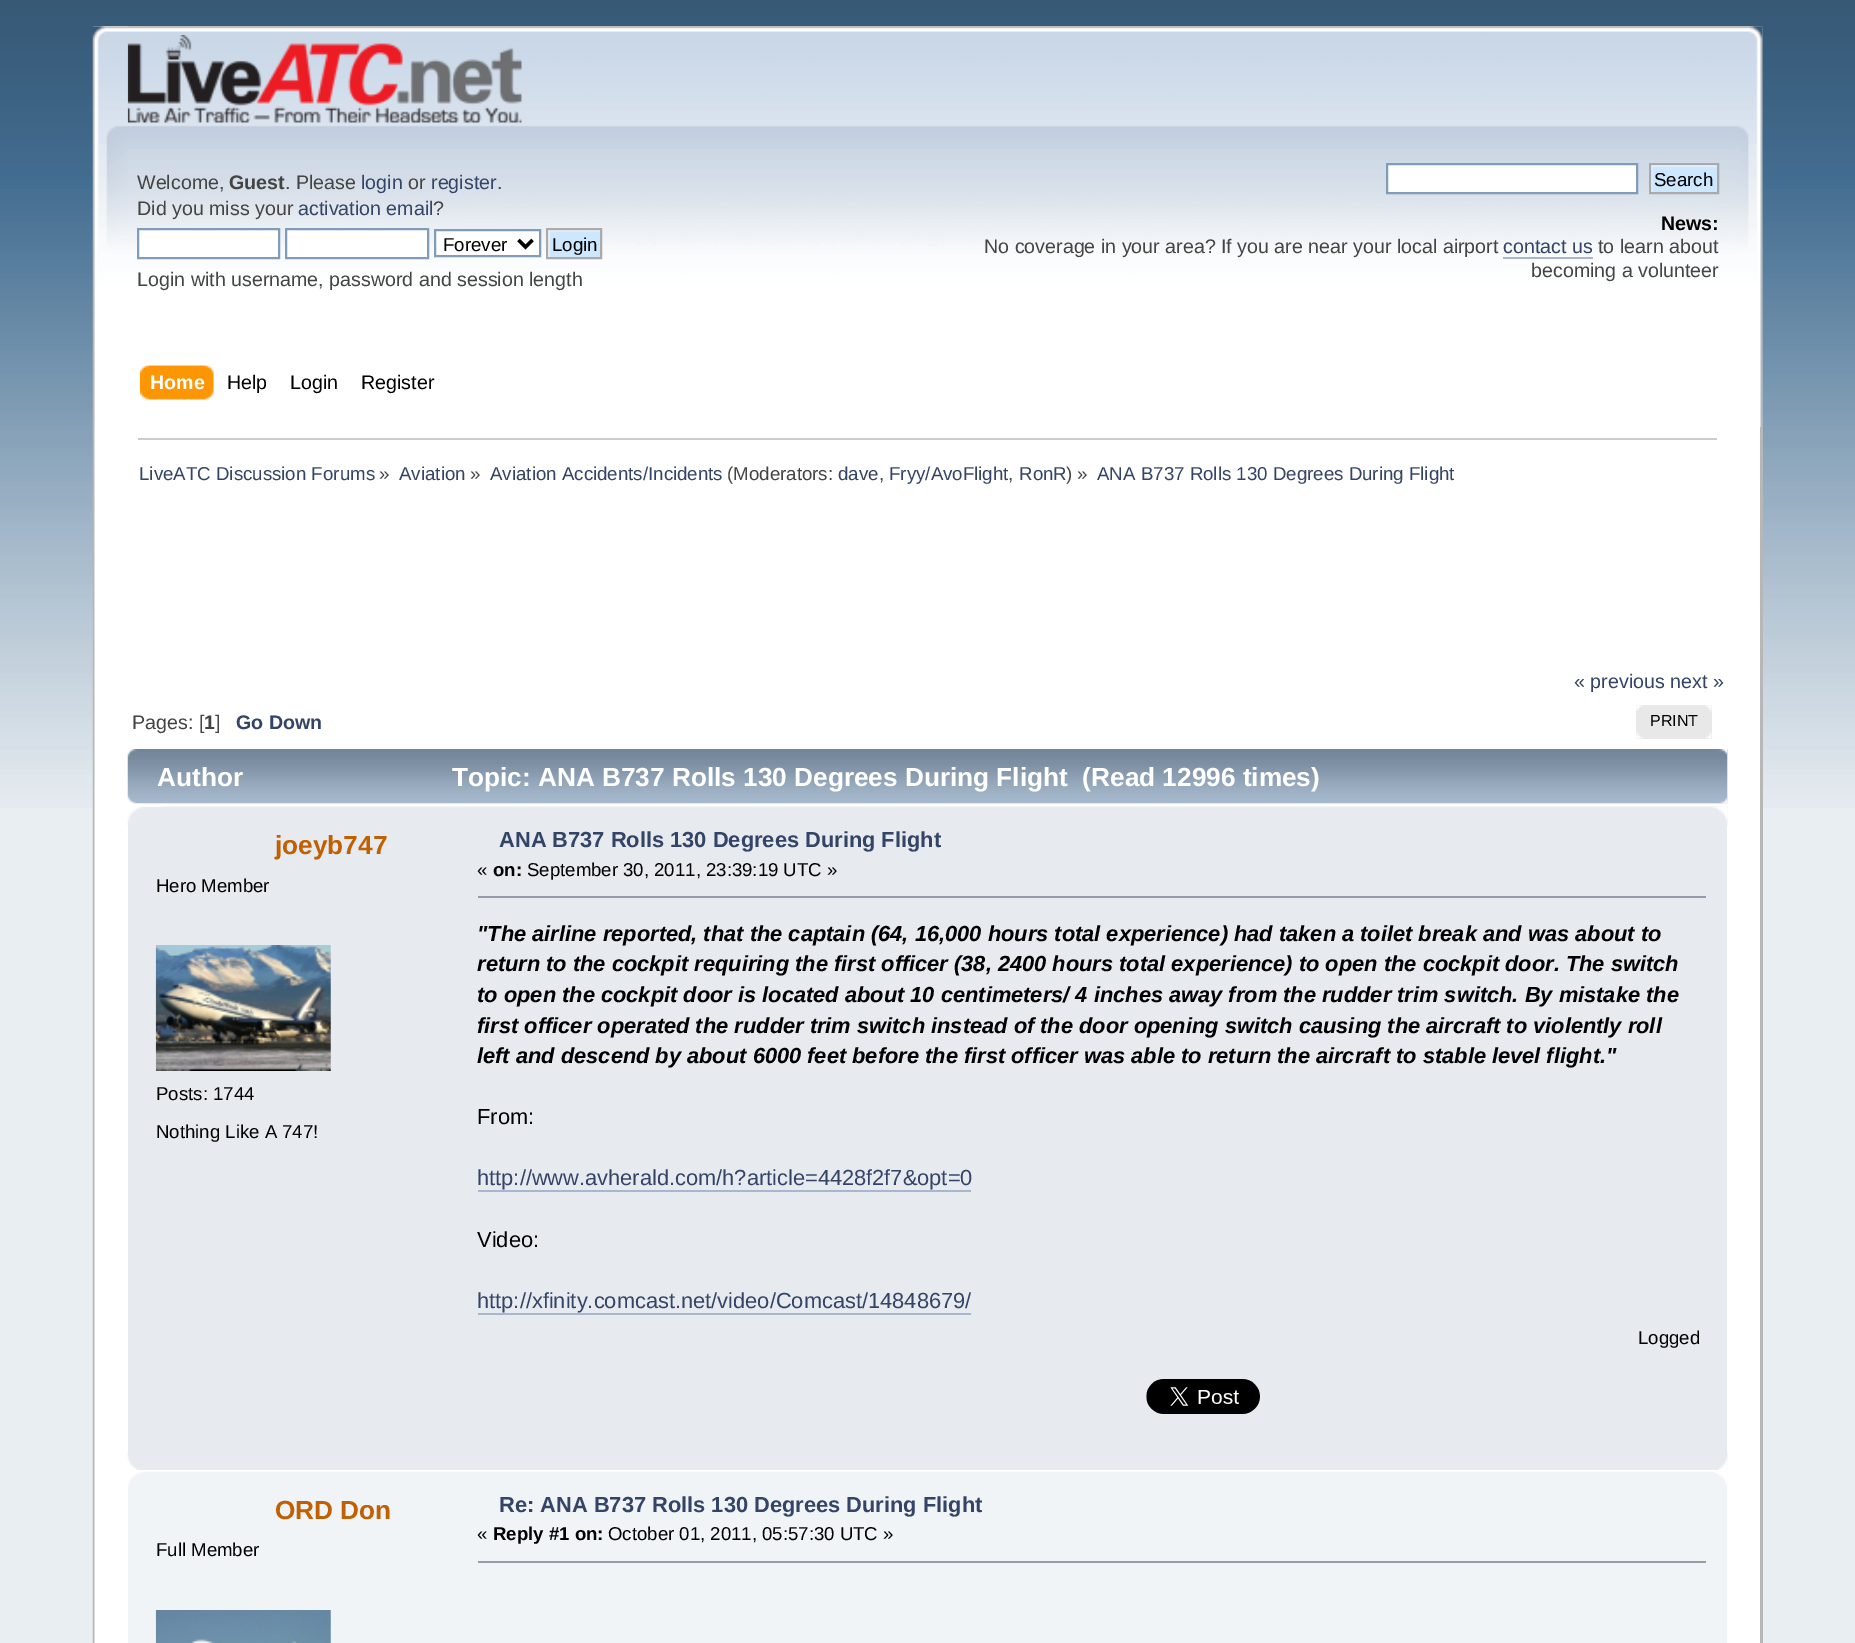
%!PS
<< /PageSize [1855 1643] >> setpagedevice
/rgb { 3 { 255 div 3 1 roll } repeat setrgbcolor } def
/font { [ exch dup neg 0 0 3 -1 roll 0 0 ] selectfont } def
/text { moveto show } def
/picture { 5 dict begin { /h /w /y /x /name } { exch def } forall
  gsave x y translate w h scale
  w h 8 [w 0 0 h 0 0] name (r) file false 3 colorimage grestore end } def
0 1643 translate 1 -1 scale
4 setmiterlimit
233 238 242 rgb
0 0 1855 1643 rectfill
(img_01.rgb) 0 0 1855 808 picture
(img_02.rgb) 92 26 1671 401 picture
(img_03.rgb) 128 26 1635 401 picture
(img_04.rgb) 127 35 395 88 picture
255 255 255 rgb
138 229 moveto 141 0 rlineto 0 29 rlineto -141 0 rlineto closepath gsave fill grestore
127 157 185 rgb
2 setlinewidth
stroke
255 255 255 rgb
286 229 moveto 142 0 rlineto 0 29 rlineto -142 0 rlineto closepath gsave fill grestore
127 157 185 rgb
stroke
255 255 255 rgb
435 230 moveto 105 0 rlineto 0 26 rlineto -105 0 rlineto closepath gsave fill grestore
127 157 185 rgb
stroke
0 0 0 rgb
3.5 setlinewidth
518.5 240 moveto 7 7 rlineto 7 -7 rlineto stroke
(img_05.rgb) 548 230 52 27 picture
170 170 170 rgb
2 setlinewidth
547 229 54 29 rectstroke
255 255 255 rgb
1387 164 moveto 250 0 rlineto 0 29 rlineto -250 0 rlineto closepath gsave fill grestore
127 157 185 rgb
stroke
(img_06.rgb) 1650 165 69 30 picture
170 170 170 rgb
1650 164 68 29 rectstroke
168 182 207 rgb
1503 257 90 2 rectfill
(img_07.rgb) 148 365 66 35 picture
(img_08.rgb) 140 365 65 35 picture
(img_09.rgb) 92 427 1668 1216 picture
183 183 183 rgb
1760 427 3 1216 rectfill
204 204 204 rgb
138 438 1579 2 rectfill
232 232 232 rgb
1636 705 76 34 rectfill
(img_10.rgb) 1636 705 7 34 picture
(img_11.rgb) 1705 705 7 34 picture
(img_12.rgb) 127 749 1601 55 picture
(img_13.rgb) 144 749 1584 55 picture
231 234 239 rgb
128 826 1599 625 rectfill
(img_14.rgb) 127 806 1601 20 picture
(img_15.rgb) 163 806 1565 20 picture
(img_16.rgb) 155 945 176 126 picture
153 153 170 rgb
478 896 1228 2 rectfill
168 182 207 rgb
478 1190 493 2 rectfill
478 1313 493 2 rectfill
(img_17.rgb) 1146 1379 114 35 picture
(img_18.rgb) 127 1451 1601 19 picture
(img_19.rgb) 1718 1451 10 19 picture
240 244 247 rgb
128 1491 1599 152 rectfill
(img_20.rgb) 127 1471 1601 20 picture
(img_21.rgb) 1714 1472 13 13 picture
(img_22.rgb) 155 1610 176 33 picture
153 153 170 rgb
478 1561 1228 2 rectfill
/LiberationSans-Regular 19.65 font
68 68 68 rgb
(Welcome,) 137 189 text
/LiberationSans-Bold 19.65 font
(Guest) 229 189 text
/LiberationSans-Regular 19.65 font
(. Please) 285 189 text
51 68 102 rgb
(login) 361 189 text
68 68 68 rgb
(or) 408 189 text
51 68 102 rgb
(register) 431 189 text
68 68 68 rgb
(.) 497 189 text
(Did you miss your) 137 215 text
51 68 102 rgb
(activation email) 298 215 text
68 68 68 rgb
(?) 433 215 text
/LiberationSans-Regular 18.7 font
0 0 0 rgb
(Forever) 443 251 text
(Login) 552 251 text
/LiberationSans-Regular 19.65 font
68 68 68 rgb
(Login with username, password and session length) 137 286 text
/LiberationSans-Regular 18.7 font
0 0 0 rgb
(Search) 1654 186 text
/LiberationSans-Bold 19.65 font
(News:) 1661 230 text
/LiberationSans-Regular 19.65 font
68 68 68 rgb
(No coverage in your area? If you are near your local airport) 984 253 text
51 68 102 rgb
(contact us) 1503 253 text
68 68 68 rgb
(to learn about) 1598 253 text
(becoming a volunteer) 1531 277 text
/LiberationSans-Bold 19.65 font
255 255 255 rgb
(Home) 150 389 text
/LiberationSans-Regular 19.65 font
0 0 0 rgb
(Help) 227 389 text
(Login) 290 389 text
(Register) 361 389 text
/LiberationSans-Regular 18.7 font
51 68 102 rgb
(LiveATC Discussion Forums) 139 480 text
68 68 68 rgb
(») 379 480 text
51 68 102 rgb
(Aviation) 399 480 text
68 68 68 rgb
(») 470 480 text
51 68 102 rgb
(Aviation Accidents/Incidents) 490 480 text
68 68 68 rgb
(\(Moderators:) 727 480 text
51 68 102 rgb
(dave) 838 480 text
68 68 68 rgb
(,) 879 480 text
51 68 102 rgb
(Fryy/AvoFlight) 889 480 text
68 68 68 rgb
(,) 1008 480 text
51 68 102 rgb
(RonR) 1019 480 text
68 68 68 rgb
(\) ») 1066 480 text
51 68 102 rgb
(ANA B737 Rolls 130 Degrees During Flight) 1097 480 text
/LiberationSans-Regular 19.65 font
(« previous next ») 1574 688 text
68 68 68 rgb
(Pages: [) 132 729 text
/LiberationSans-Bold 19.65 font
(1) 204 729 text
/LiberationSans-Regular 19.65 font
(]) 215 729 text
/LiberationSans-Bold 19.65 font
51 68 102 rgb
(Go Down) 236 729 text
/LiberationSans-Regular 16 font
0 0 0 rgb
(PRINT) 1650 726 text
/LiberationSans-Bold 26.2 font
255 255 255 rgb
(Author) 157 786 text
(Topic: ANA B737 Rolls 130 Degrees During Flight  \(Read 12996 times\)) 452 786 text
192 96 2 rgb
(joeyb747) 275 854 text
/LiberationSans-Regular 18.6 font
0 0 0 rgb
(Hero Member) 156 892 text
(Posts: 1744) 156 1100 text
(Nothing Like A 747!) 156 1138 text
/LiberationSans-Bold 21.85 font
51 68 102 rgb
(ANA B737 Rolls 130 Degrees During Flight) 499 847 text
/LiberationSans-Regular 18.6 font
0 0 0 rgb
(«) 477 876 text
/LiberationSans-Bold 18.6 font
(on:) 493 876 text
/LiberationSans-Regular 18.6 font
(September 30, 2011, 23:39:19 UTC ») 527 876 text
/LiberationSans-BoldItalic 21.85 font
("The airline reported, that the captain \(64, 16,000 hours total experience\) had taken a toilet break and was about to) 477 941 text
(return to the cockpit requiring the first officer \(38, 2400 hours total experience\) to open the cockpit door. The switch) 477 971 text
(to open the cockpit door is located about 10 centimeters/ 4 inches away from the rudder trim switch. By mistake the) 477 1002 text
(first officer operated the rudder trim switch instead of the door opening switch causing the aircraft to violently roll) 477 1033 text
(left and descend by about 6000 feet before the first officer was able to return the aircraft to stable level flight.") 477 1063 text
/LiberationSans-Regular 21.85 font
(From:) 477 1124 text
51 68 102 rgb
(http://www.avherald.com/h?article=4428f2f7&opt=0) 477 1185 text
0 0 0 rgb
(Video:) 477 1247 text
51 68 102 rgb
(http://xfinity.comcast.net/video/Comcast/14848679/) 477 1308 text
/LiberationSans-Regular 18.6 font
0 0 0 rgb
(Logged) 1638 1344 text
/LiberationSans-Bold 26.2 font
192 96 2 rgb
(ORD Don) 275 1519 text
/LiberationSans-Regular 18.6 font
0 0 0 rgb
(Full Member) 156 1556 text
/LiberationSans-Bold 21.85 font
51 68 102 rgb
(Re: ANA B737 Rolls 130 Degrees During Flight) 499 1512 text
/LiberationSans-Regular 18.6 font
0 0 0 rgb
(«) 477 1540 text
/LiberationSans-Bold 18.6 font
(Reply #1 on:) 493 1540 text
/LiberationSans-Regular 18.6 font
(October 01, 2011, 05:57:30 UTC ») 608 1540 text
showpage
